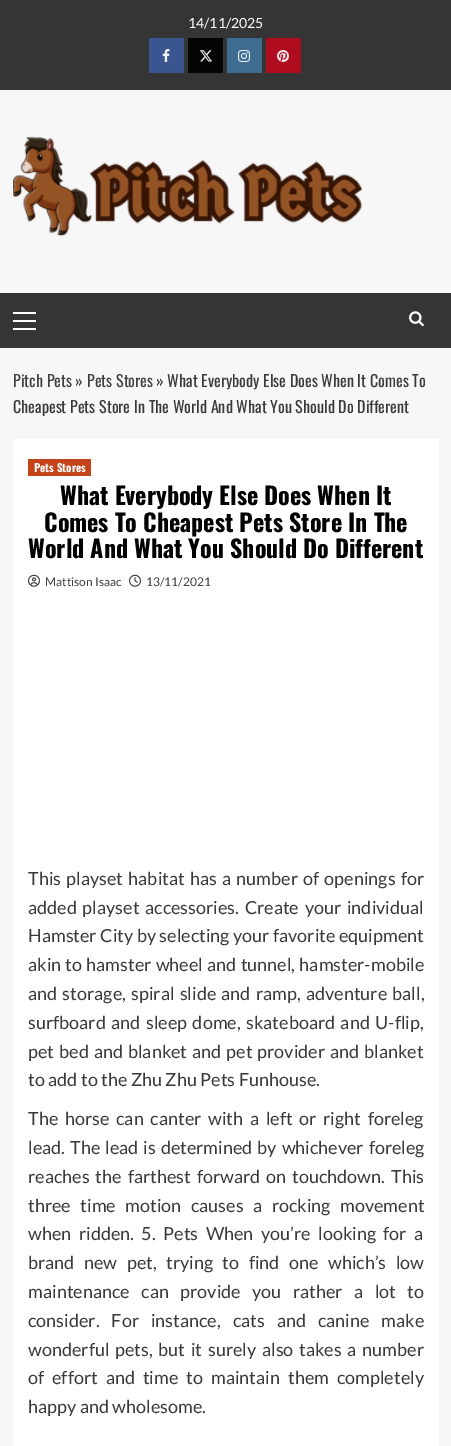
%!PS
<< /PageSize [451 1446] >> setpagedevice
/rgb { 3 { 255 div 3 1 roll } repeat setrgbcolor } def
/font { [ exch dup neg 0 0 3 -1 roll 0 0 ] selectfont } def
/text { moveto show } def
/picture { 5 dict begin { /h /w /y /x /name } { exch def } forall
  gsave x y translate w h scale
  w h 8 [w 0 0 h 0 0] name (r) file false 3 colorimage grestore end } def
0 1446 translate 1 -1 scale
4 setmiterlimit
247 247 247 rgb
0 0 451 1446 rectfill
53 53 53 rgb
0 0 451 90 rectfill
58 85 143 rgb
149 38 35 35 rectfill
(img_01.rgb) 162 49 8 13 picture
5 5 5 rgb
188 38 35 35 rectfill
(img_02.rgb) 199 50 14 12 picture
62 108 145 rgb
227 38 35 35 rectfill
(img_03.rgb) 238 50 12 12 picture
175 13 31 rgb
266 38 35 35 rectfill
(img_04.rgb) 277 50 12 12 picture
(img_05.rgb) 13 136 349 101 picture
53 53 53 rgb
0 293 451 55 rectfill
255 255 255 rgb
13 320 23 2 rectfill
13 312 23 2 rectfill
13 328 23 2 rectfill
(img_06.rgb) 409 311 15 16 picture
13 439 426 1007 rectfill
196 67 24 rgb
28 459 63 17 rectfill
(img_07.rgb) 28 574 12 13 picture
(img_08.rgb) 129 574 12 13 picture
/Lato-Regular 14 font
255 255 255 rgb
(14/11/2025) 188 28 text
/Oswald-Regular 16 font
64 64 64 rgb
(Pitch Pets) 13 387 text
58 58 58 rgb
(») 75 387 text
64 64 64 rgb
(Pets Stores) 87 387 text
58 58 58 rgb
(» What Everybody Else Does When It Comes To) 156 387 text
(Cheapest Pets Store In The World And What You Should Do Different) 13 413 text
/Oswald-Bold 11 font
255 255 255 rgb
(Pets Stores) 34 472 text
/Oswald-Bold 24 font
0 0 0 rgb
(What Everybody Else Does When It) 60 505 text
(Comes To Cheapest Pets Store In The) 44 532 text
(World And What You Should Do Different) 28 558 text
/Lato-Regular 12 font
64 64 64 rgb
(Mattison Isaac) 45 586 text
(13/11/2021) 146 586 text
/Lato-Regular 18 font
58 58 58 rgb
28 885 moveto 1.75 0 32 (This playset habitat has a number of openings for) widthshow
28 914 moveto 2.25 0 32 (added playset accessories. Create your individual) widthshow
(Hamster City by selecting your favorite equipment) 28 942 text
28 971 moveto 0.75 0 32 (akin to hamster wheel and tunnel, hamster-mobile) widthshow
28 1000 moveto 1.75 0 32 (and storage, spiral slide and ramp, adventure ball,) widthshow
28 1029 moveto 2 0 32 (surfboard and sleep dome, skateboard and U-flip,) widthshow
28 1058 moveto 1.5 0 32 (pet bed and blanket and pet provider and blanket) widthshow
(to add to the Zhu Zhu Pets Funhouse.) 28 1086 text
28 1125 moveto 3.25 0 32 (The horse can canter with a left or right foreleg) widthshow
28 1154 moveto 1.5 0 32 (lead. The lead is determined by whichever foreleg) widthshow
28 1183 moveto 2.5 0 32 (reaches the farthest forward on touchdown. This) widthshow
28 1212 moveto 6 0 32 (three time motion causes a rocking movement) widthshow
28 1240 moveto 4 0 32 (when ridden. 5. Pets When you’re looking for a) widthshow
28 1269 moveto 6 0 32 (brand new pet, trying to find one which’s low) widthshow
28 1298 moveto 8 0 32 (maintenance can provide you rather a lot to) widthshow
28 1327 moveto 8.5 0 32 (consider. For instance, cats and canine make) widthshow
28 1356 moveto 2.25 0 32 (wonderful pets, but it surely also takes a number) widthshow
28 1384 moveto 4.5 0 32 (of effort and time to maintain them completely) widthshow
(happy and wholesome.) 28 1413 text
showpage
